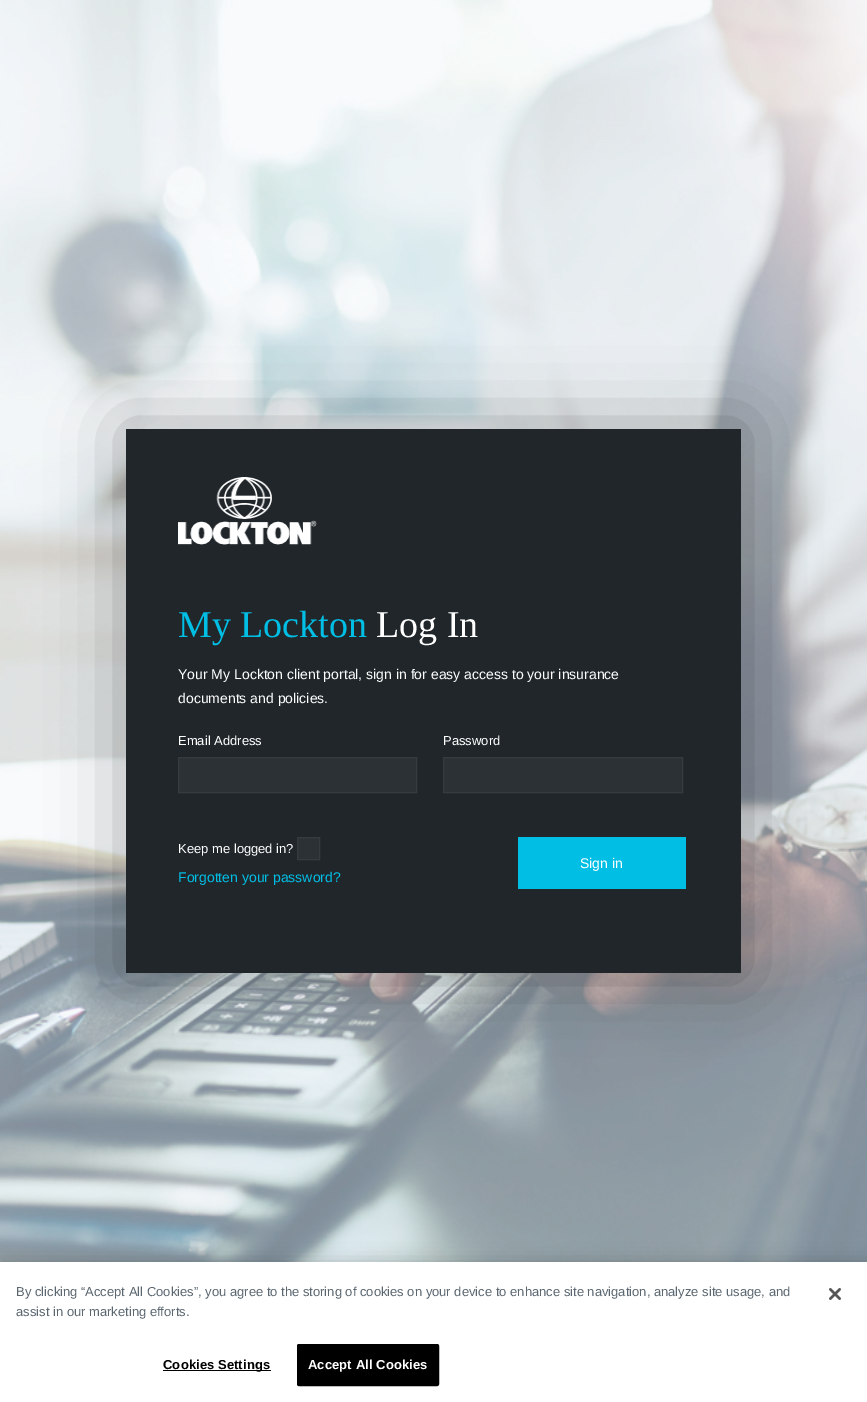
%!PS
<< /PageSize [867 1402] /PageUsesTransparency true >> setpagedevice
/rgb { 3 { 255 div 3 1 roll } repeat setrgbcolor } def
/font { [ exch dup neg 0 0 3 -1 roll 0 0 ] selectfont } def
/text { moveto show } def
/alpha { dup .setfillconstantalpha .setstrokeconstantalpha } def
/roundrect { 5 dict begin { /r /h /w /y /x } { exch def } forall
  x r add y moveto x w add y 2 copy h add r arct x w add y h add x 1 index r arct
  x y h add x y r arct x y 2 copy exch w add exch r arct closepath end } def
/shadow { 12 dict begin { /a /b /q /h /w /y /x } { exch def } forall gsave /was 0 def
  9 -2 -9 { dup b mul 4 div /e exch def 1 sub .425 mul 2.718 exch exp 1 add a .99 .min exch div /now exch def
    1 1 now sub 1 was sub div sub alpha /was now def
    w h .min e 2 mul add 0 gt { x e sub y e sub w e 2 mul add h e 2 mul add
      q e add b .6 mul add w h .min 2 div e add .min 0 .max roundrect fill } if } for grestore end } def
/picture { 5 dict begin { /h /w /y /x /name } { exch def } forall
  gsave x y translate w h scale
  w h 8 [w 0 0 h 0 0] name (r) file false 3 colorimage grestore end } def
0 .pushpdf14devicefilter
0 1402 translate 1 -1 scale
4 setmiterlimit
255 255 255 rgb
0 0 867 1402 rectfill
(img_01.rgb) 0 0 867 1262 picture
0 0 0 rgb
121 424 625 554 0 35 0.3 shadow
32 38 42 rgb
126 429 615 544 rectfill
(img_02.rgb) 178 477 139 68 picture
43 49 53 rgb
178.5 757.5 moveto 238 0 rlineto 0 35 rlineto -238 0 rlineto closepath gsave fill grestore
54 59 63 rgb
stroke
43 49 53 rgb
443.5 757.5 moveto 239 0 rlineto 0 35 rlineto -239 0 rlineto closepath gsave fill grestore
54 59 63 rgb
stroke
43 49 53 rgb
297.5 837.5 moveto 22 0 rlineto 0 22 rlineto -22 0 rlineto closepath gsave fill grestore
54 59 63 rgb
stroke
1 190 229 rgb
518 837 168 52 rectfill
0 0 0 rgb
0 1262 867 140 0 9 0.2 shadow
255 255 255 rgb
0 1262 867 140 rectfill
0 0 0 rgb
163 1370 108 1 rectfill
297.5 1344.5 141 41 1.5 roundrect gsave fill grestore
stroke
(img_03.rgb) 829 1288 12 12 picture
/LiberationSerif-Regular 38 font
1 190 229 rgb
(My Lockton) 178 637 text
255 255 255 rgb
(Log In) 376 637 text
/LiberationSans-Regular 14 font
(Your My Lockton client portal, sign in for easy access to your insurance) 178 679 text
(documents and policies.) 178 703 text
/LiberationSans-Regular 13 font
(Email Address) 178 745 text
(Password) 443 745 text
(Keep me logged in?) 178 853 text
/LiberationSans-Regular 14 font
(Sign in) 580 868 text
1 190 229 rgb
(Forgotten your password?) 178 882 text
/LiberationSans-Regular 13 font
91 103 112 rgb
(By clicking “Accept All Cookies”, you agree to the storing of cookies on your device to enhance site navigation, analyze site usage, and) 16 1296 text
(assist in our marketing efforts.) 16 1316 text
/LiberationSans-Bold 13 font
0 0 0 rgb
163 1369 moveto 0.1 0 (Cookies Settings) ashow
255 255 255 rgb
308 1369 moveto 0.1 0 (Accept All Cookies) ashow
.poppdf14devicefilter showpage
